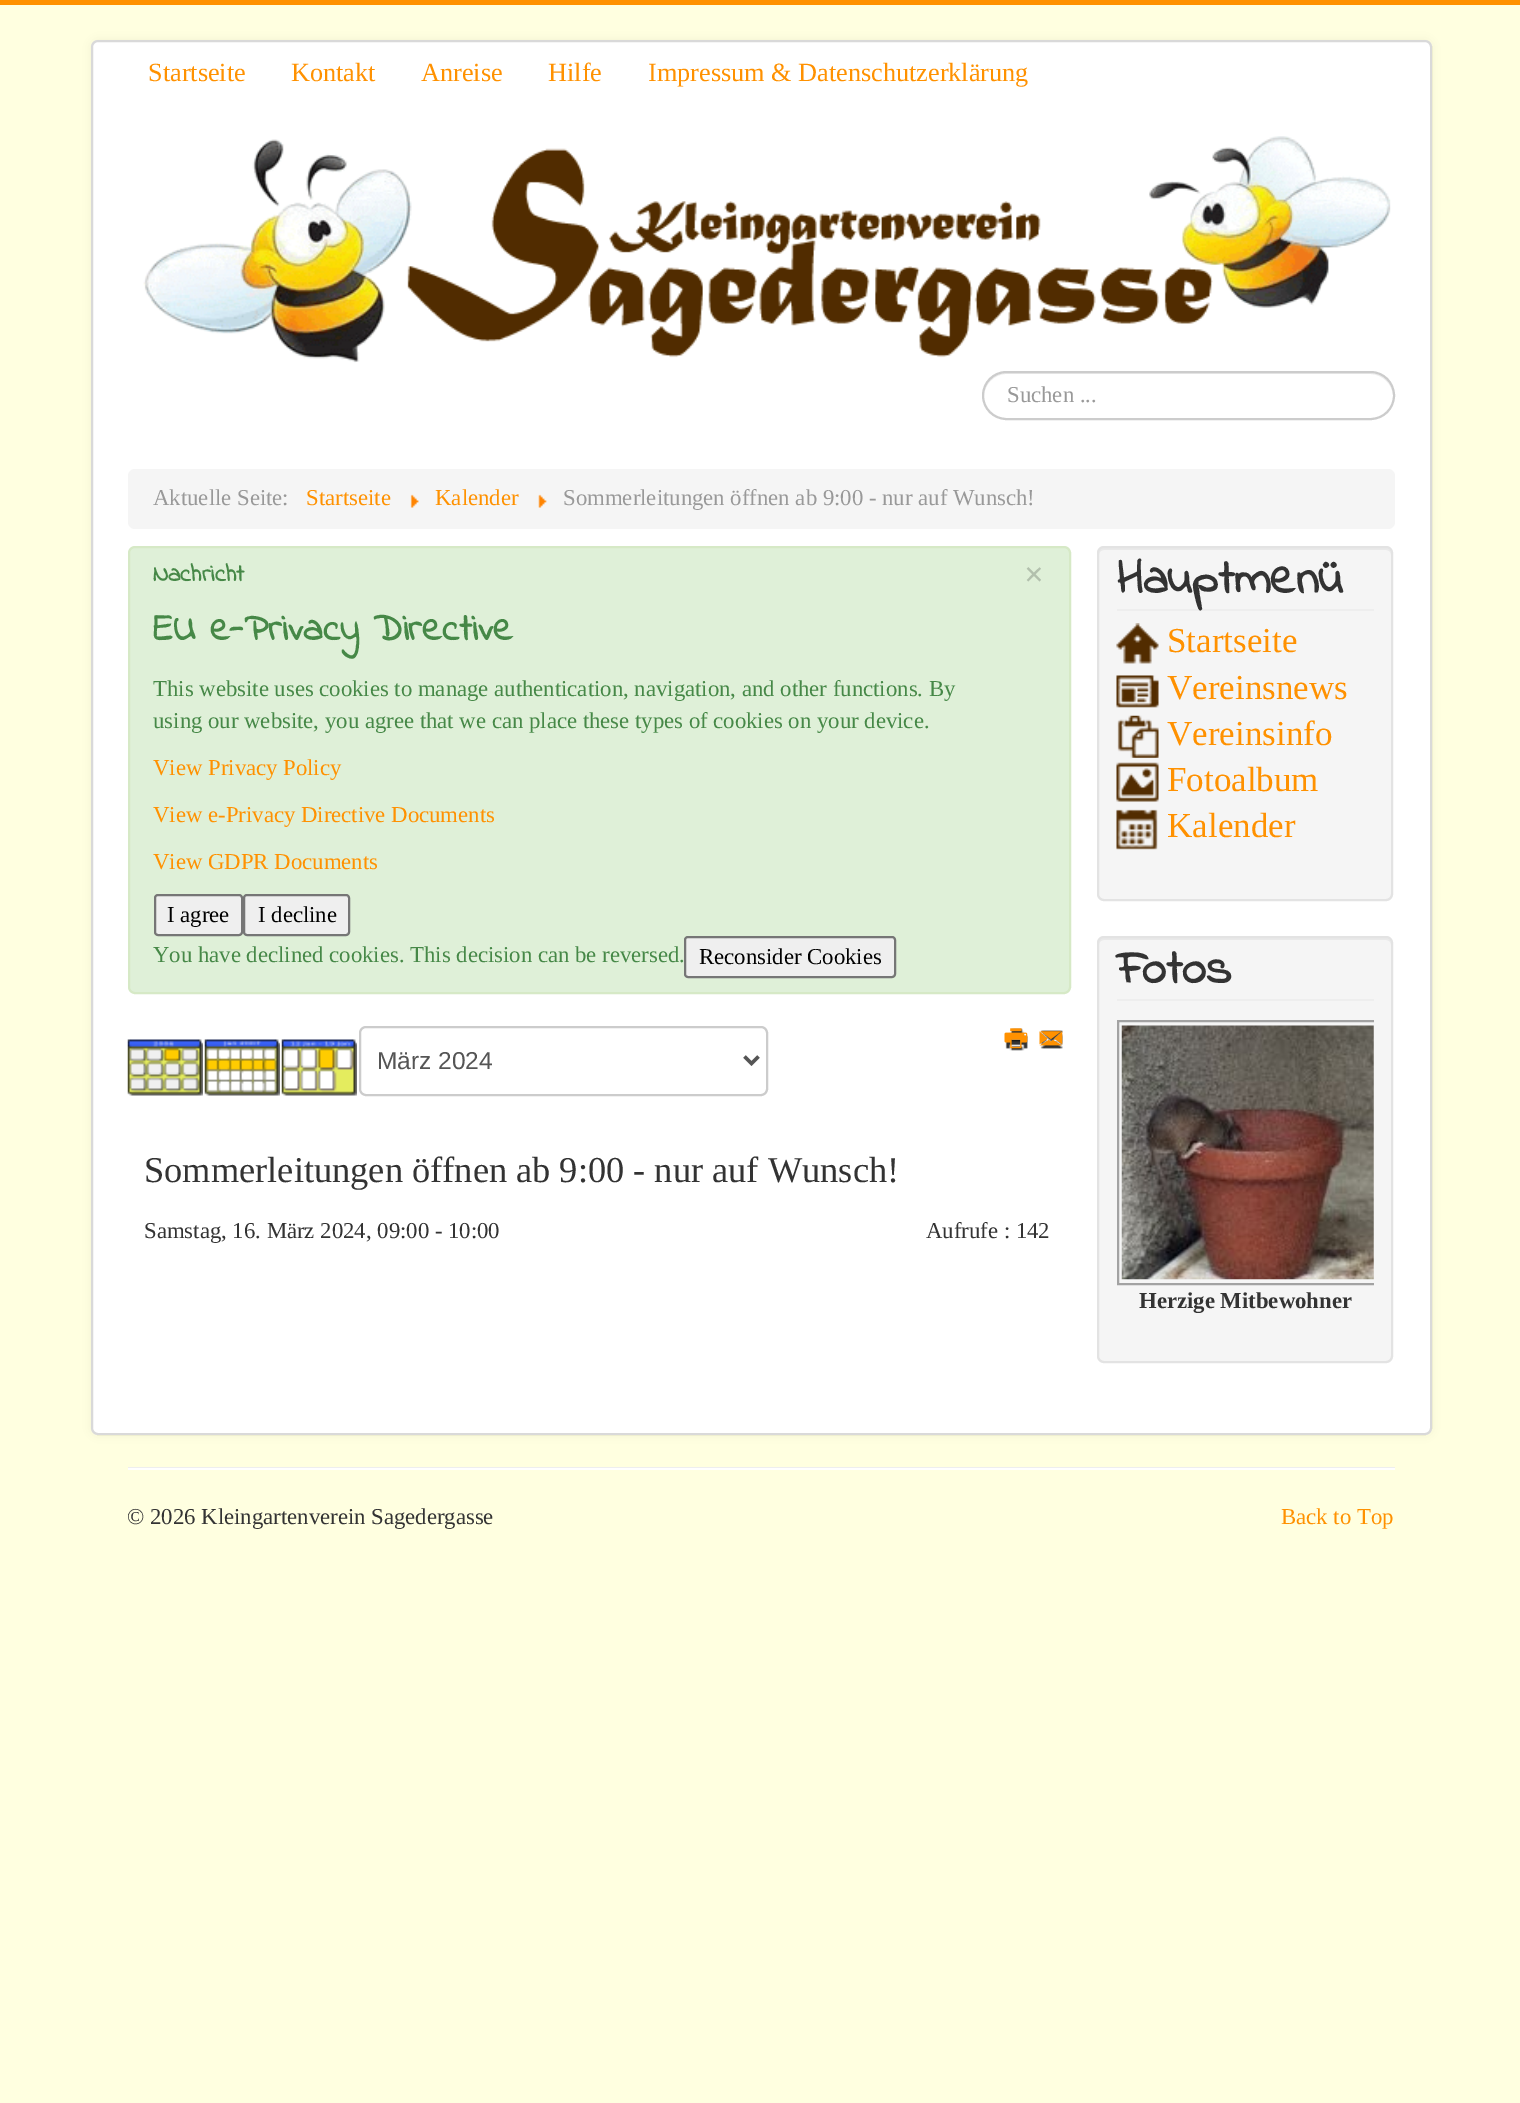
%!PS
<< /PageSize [1520 2103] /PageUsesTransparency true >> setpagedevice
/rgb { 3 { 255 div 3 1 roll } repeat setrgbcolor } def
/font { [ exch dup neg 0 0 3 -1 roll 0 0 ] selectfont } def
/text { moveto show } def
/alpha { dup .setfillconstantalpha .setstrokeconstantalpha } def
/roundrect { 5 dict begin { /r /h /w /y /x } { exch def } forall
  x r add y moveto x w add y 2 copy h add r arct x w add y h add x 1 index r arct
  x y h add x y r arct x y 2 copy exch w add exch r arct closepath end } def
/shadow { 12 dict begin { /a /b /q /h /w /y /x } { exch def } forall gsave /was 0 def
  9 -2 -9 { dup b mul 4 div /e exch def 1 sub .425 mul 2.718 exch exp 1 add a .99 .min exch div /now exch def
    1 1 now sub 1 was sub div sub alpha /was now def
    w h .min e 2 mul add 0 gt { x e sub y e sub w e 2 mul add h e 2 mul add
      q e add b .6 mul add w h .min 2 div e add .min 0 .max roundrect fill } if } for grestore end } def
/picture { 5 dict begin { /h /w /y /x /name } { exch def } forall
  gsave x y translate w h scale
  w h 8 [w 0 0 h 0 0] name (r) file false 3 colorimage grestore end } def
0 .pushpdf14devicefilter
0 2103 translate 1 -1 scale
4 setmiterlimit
255 255 224 rgb
0 0 1520 2103 rectfill
255 145 0 rgb
0 0 1520 5 rectfill
0 0 0 rgb
91 40 1341 1395 7 5 0.05 shadow
255 255 255 rgb
91 40 1341 1395 7 roundrect fill
0.15 alpha
0 0 0 rgb
2 setlinewidth
92 41 1339 1393 6 roundrect stroke
1 alpha
(img_01.rgb) 143 136 1248 227 picture
236 236 236 rgb
1006 374 moveto 364 0 rlineto 13 0 23 11 23 22 rcurveto 0 -12 -10 -23 -23 -23 rcurveto -364 0 rlineto -12 0 -22 11 -22 23 rcurveto 0 -11 10 -22 22 -22 rcurveto closepath fill
204 204 204 rgb
983 372 411 47 23.5 roundrect stroke
245 245 245 rgb
128 469 1267 60 7 roundrect fill
(img_02.rgb) 410 494 9 14 picture
(img_03.rgb) 538 494 9 14 picture
223 240 216 rgb
129 547 941 446 6 roundrect gsave fill grestore
214 233 198 rgb
stroke
239 239 239 rgb
155 895 87 40 3 roundrect gsave fill grestore
118 118 118 rgb
stroke
239 239 239 rgb
244 895 105 40 3 roundrect gsave fill grestore
118 118 118 rgb
stroke
239 239 239 rgb
685 937 210 40 3 roundrect gsave fill grestore
118 118 118 rgb
stroke
(img_04.rgb) 1005 1028 23 23 picture
(img_05.rgb) 1004 1028 24 21 picture
(img_06.rgb) 1040 1030 23 19 picture
(img_07.rgb) 1039 1031 24 15 picture
(img_08.rgb) 127 1039 76 57 picture
(img_09.rgb) 204 1039 76 57 picture
(img_10.rgb) 281 1039 76 57 picture
204 204 204 rgb
360 1027 407 68 6 roundrect stroke
85 85 85 rgb
3.5 setlinewidth
744.5 1056.5 moveto 7 7 rlineto 7 -7 rlineto stroke
245 245 245 rgb
1097 546 296 355 7 roundrect fill
233 233 233 rgb
1104 550 moveto 282 0 rlineto 3 0 5 2 5 5 rcurveto 0 -3 -1 -7 -5 -7 rcurveto -283 0 rlineto -4 1 -4 4 -4 7 rcurveto 0 -3 2 -5 5 -5 rcurveto closepath fill
227 227 227 rgb
2 setlinewidth
1098 547 294 353 6 roundrect stroke
238 238 238 rgb
1117 609 257 2 rectfill
(img_11.rgb) 1116 623 43 41 picture
(img_12.rgb) 1116 675 43 33 picture
(img_13.rgb) 1117 715 42 43 picture
(img_14.rgb) 1116 762 43 40 picture
(img_15.rgb) 1116 809 42 41 picture
245 245 245 rgb
1097 936 296 427 7 roundrect fill
233 233 233 rgb
1104 940 moveto 282 0 rlineto 3 0 5 2 5 5 rcurveto 0 -3 -1 -7 -5 -7 rcurveto -283 0 rlineto -4 1 -4 4 -4 7 rcurveto 0 -3 2 -5 5 -5 rcurveto closepath fill
227 227 227 rgb
1098 937 294 425 6 roundrect stroke
238 238 238 rgb
1117 999 257 2 rectfill
gsave
1117 1010 257 334 rectclip
162 162 162 rgb
1118 1021 262 263 rectstroke
grestore
(img_16.rgb) 1121 1025 253 255 picture
128 1467 1267 1 rectfill
255 255 255 rgb
128 1468 1267 2 rectfill
/LiberationSerif-Regular 26.25 font
255 145 0 rgb
(Startseite) 148 81 text
(Kontakt) 291 81 text
(Anreise) 421 81 text
(Hilfe) 548 81 text
(Impressum & Datenschutzerklärung) 648 81 text
/LiberationSerif-Regular 22.75 font
153 153 153 rgb
(Suchen ...) 1007 402 text
(Aktuelle Seite:) 153 505 text
255 145 0 rgb
(Startseite) 306 505 text
(Kalender) 435 505 text
153 153 153 rgb
(Sommerleitungen öffnen ab 9:00 - nur auf Wunsch!) 563 505 text
/IndieFlower-Bold 24.5 font
70 136 71 rgb
(Nachricht) 153 581 text
/LiberationSerif-Bold 35 font
178 192 173 rgb
(×) 1024 586 text
/IndieFlower-Bold 38.5 font
70 136 71 rgb
(EU e-Privacy Directive) 153 640 text
/LiberationSerif-Regular 22.75 font
(This website uses cookies to manage authentication, navigation, and other functions. By) 153 696 text
(using our website, you agree that we can place these types of cookies on your device.) 153 728 text
255 145 0 rgb
(View Privacy Policy) 153 775 text
(View e-Privacy Directive Documents) 153 822 text
(View GDPR Documents) 153 869 text
0 0 0 rgb
(I agree) 167 922 text
(I decline) 258 922 text
70 136 71 rgb
(You have declined cookies. This decision can be reversed.) 153 962 text
0 0 0 rgb
(Reconsider Cookies) 699 964 text
/LiberationSans-Regular 24.5 font
85 85 85 rgb
(März 2024) 377 1069 text
/LiberationSerif-Regular 36.4 font
51 51 51 rgb
(Sommerleitungen öffnen ab 9:00 - nur auf Wunsch!) 144 1182 text
/LiberationSerif-Regular 22.75 font
(Samstag, 16. März 2024, 09:00 - 10:00) 144 1238 text
(Aufrufe : 142) 926 1238 text
/IndieFlower-Bold 49 font
(Hauptmenü) 1117 593 text
/LiberationSerif-Regular 35 font
255 145 0 rgb
(Startseite) 1167 652 text
(Vereinsnews) 1167 699 text
(Vereinsinfo) 1167 745 text
(Fotoalbum) 1167 791 text
(Kalender) 1167 837 text
/IndieFlower-Bold 49 font
51 51 51 rgb
(Fotos) 1117 983 text
/LiberationSerif-Bold 22.75 font
(Herzige Mitbewohner) 1139 1308 text
/LiberationSerif-Regular 22.75 font
(© 2026 Kleingartenverein Sagedergasse) 127 1524 text
255 145 0 rgb
(Back to Top) 1281 1524 text
.poppdf14devicefilter showpage
